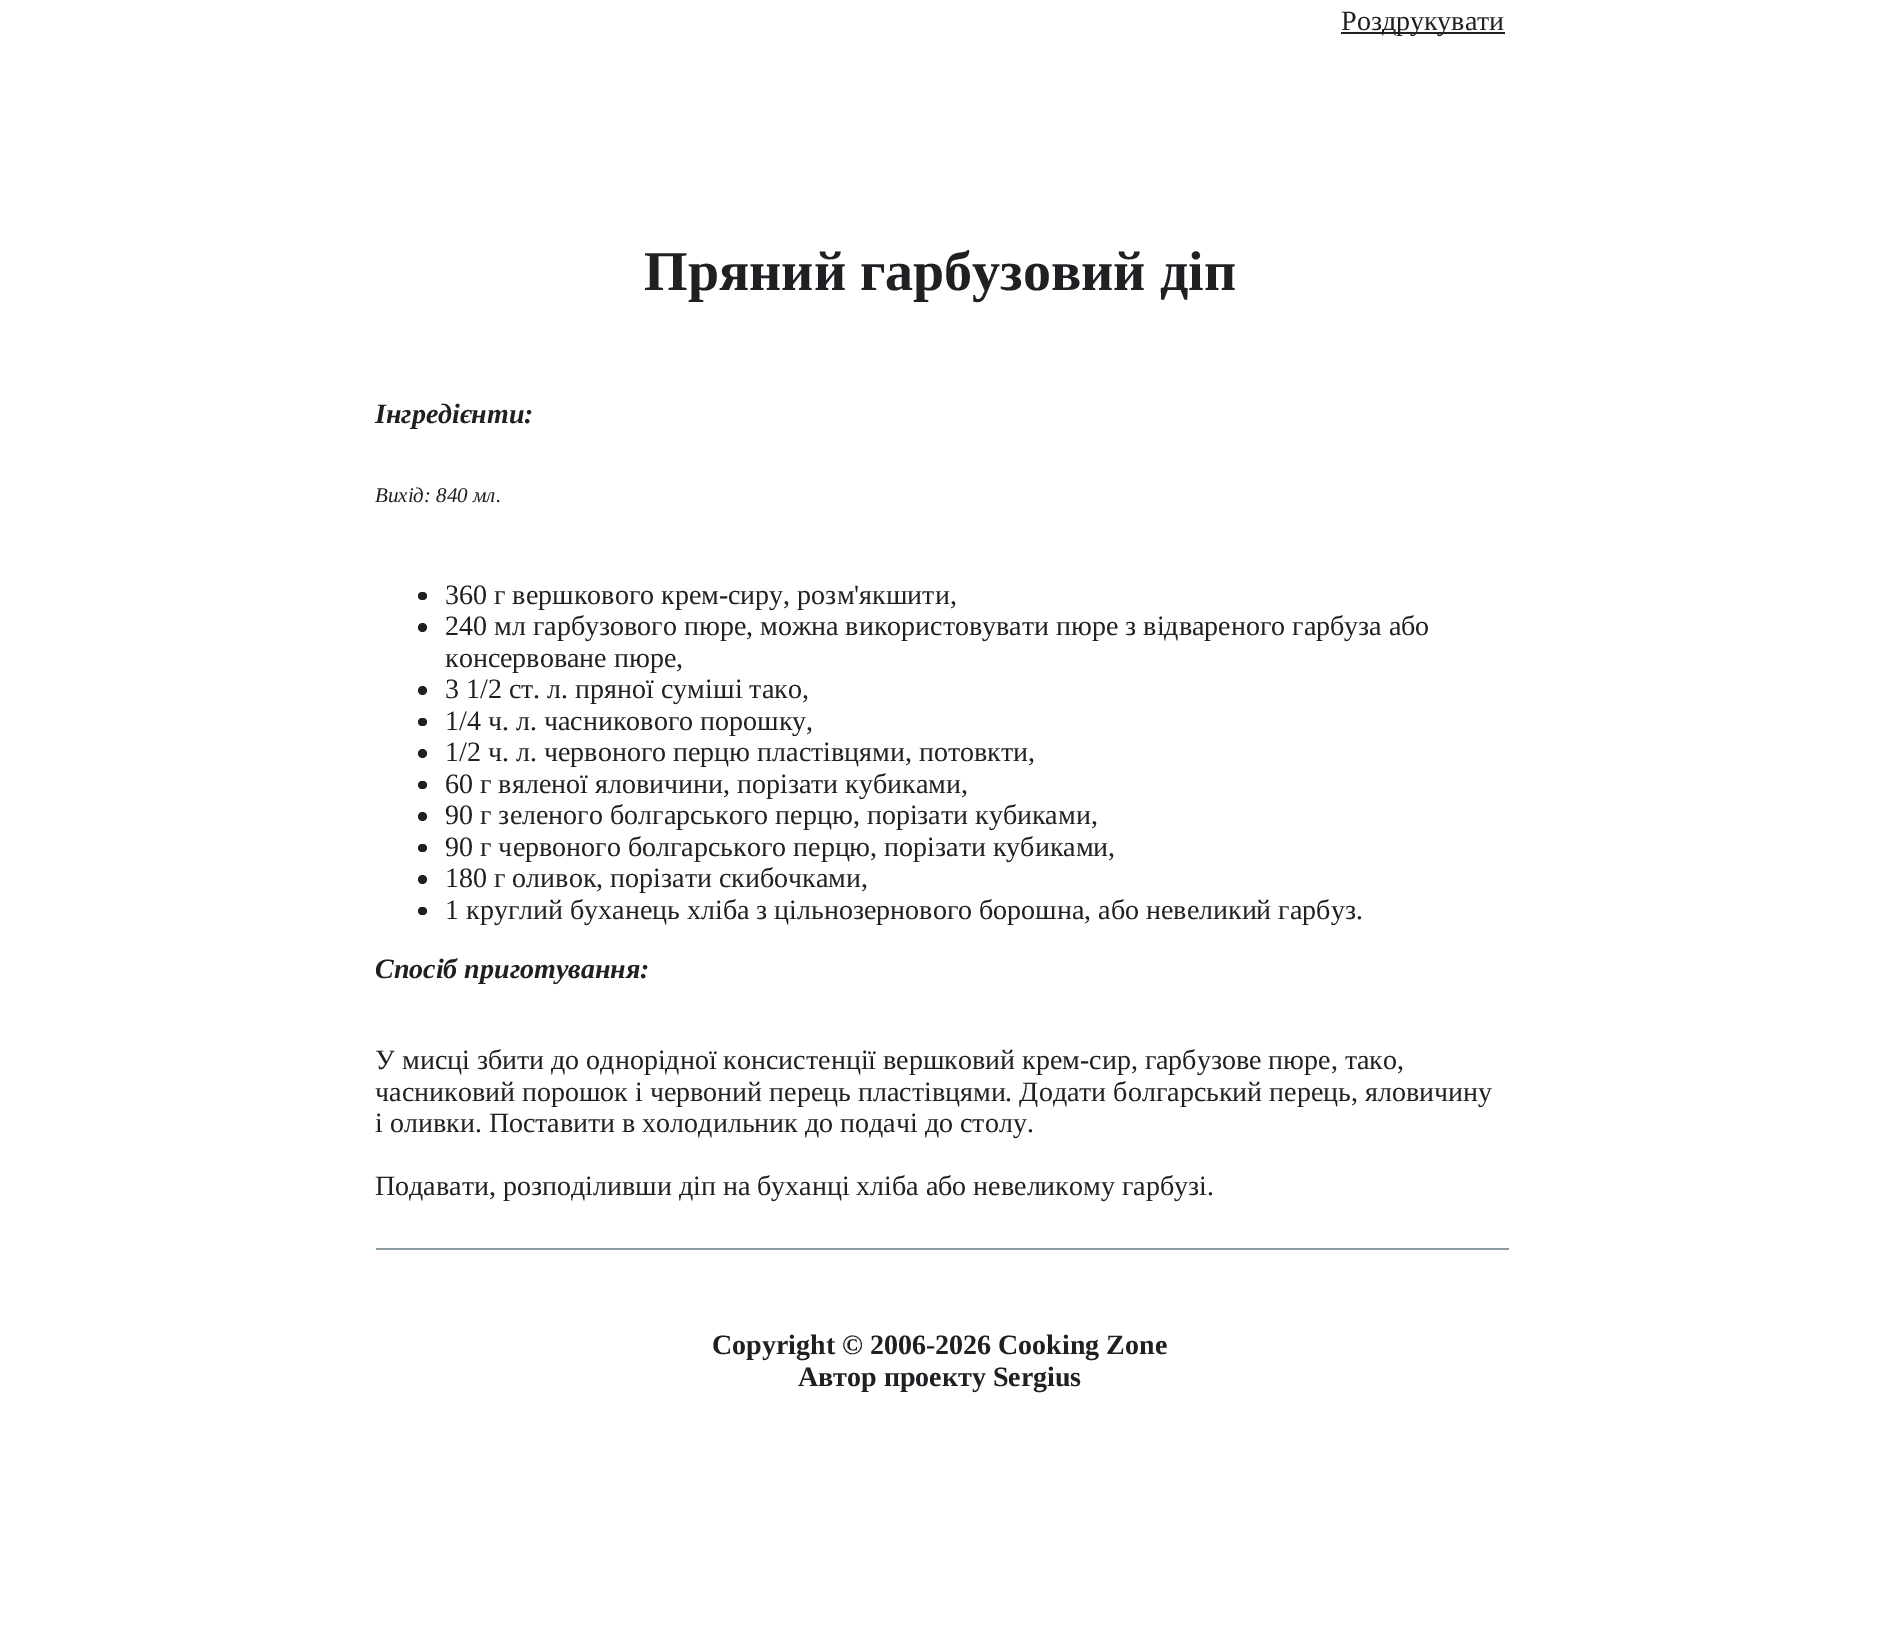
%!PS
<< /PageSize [1878 1645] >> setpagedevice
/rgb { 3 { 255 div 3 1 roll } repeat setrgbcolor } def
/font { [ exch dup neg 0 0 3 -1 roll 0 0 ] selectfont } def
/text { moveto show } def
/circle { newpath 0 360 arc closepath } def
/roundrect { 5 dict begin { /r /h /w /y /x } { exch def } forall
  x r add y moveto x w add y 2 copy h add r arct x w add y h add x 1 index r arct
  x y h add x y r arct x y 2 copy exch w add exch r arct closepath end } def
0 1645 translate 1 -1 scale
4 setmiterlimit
255 255 255 rgb
0 0 1878 1645 rectfill
32 32 36 rgb
1341 32 164 2 rectfill
418 592 9 8 4 roundrect fill
422.5 627.5 4.5 circle fill
422.5 690.5 4.5 circle fill
418 718 9 8 4 roundrect fill
422.5 753.5 4.5 circle fill
418 781 9 8 4 roundrect fill
422.5 816.5 4.5 circle fill
418 844 9 8 4 roundrect fill
422.5 879.5 4.5 circle fill
418 907 9 8 4 roundrect fill
139 156 163 rgb
376 1248 1133 2 rectfill
/LiberationSerif-Regular 28 font
32 32 36 rgb
(Роздрукувати) 1341 30 text
/LiberationSerif-Bold 56 font
(Пряний гарбузовий діп) 644 290 text
/LiberationSerif-BoldItalic 28 font
(Інгредієнти:) 375 423 text
/LiberationSerif-Italic 21 font
(Вихід: 840 мл.) 375 502 text
/LiberationSerif-Regular 28 font
(360 г вершкового крем-сиру, розм'якшити,) 445 604 text
(240 мл гарбузового пюре, можна використовувати пюре з відвареного гарбуза або) 445 635 text
(консервоване пюре,) 445 667 text
(3 1/2 ст. л. пряної суміші тако,) 445 698 text
(1/4 ч. л. часникового порошку,) 445 730 text
(1/2 ч. л. червоного перцю пластівцями, потовкти,) 445 761 text
(60 г вяленої яловичини, порізати кубиками,) 445 793 text
(90 г зеленого болгарського перцю, порізати кубиками,) 445 824 text
(90 г червоного болгарського перцю, порізати кубиками,) 445 856 text
(180 г оливок, порізати скибочками,) 445 887 text
(1 круглий буханець хліба з цільнозернового борошна, або невеликий гарбуз.) 445 919 text
/LiberationSerif-BoldItalic 28 font
(Спосіб приготування:) 375 978 text
/LiberationSerif-Regular 28 font
(У мисці збити до однорідної консистенції вершковий крем-сир, гарбузове пюре, тако,) 375 1069 text
(часниковий порошок і червоний перець пластівцями. Додати болгарський перець, яловичину) 375 1101 text
(і оливки. Поставити в холодильник до подачі до столу.) 375 1132 text
(Подавати, розподіливши діп на буханці хліба або невеликому гарбузі.) 375 1195 text
/LiberationSerif-Bold 28 font
(Copyright © 2006-2026 Cooking Zone) 712 1354 text
(Автор проекту Sergius) 798 1386 text
showpage
